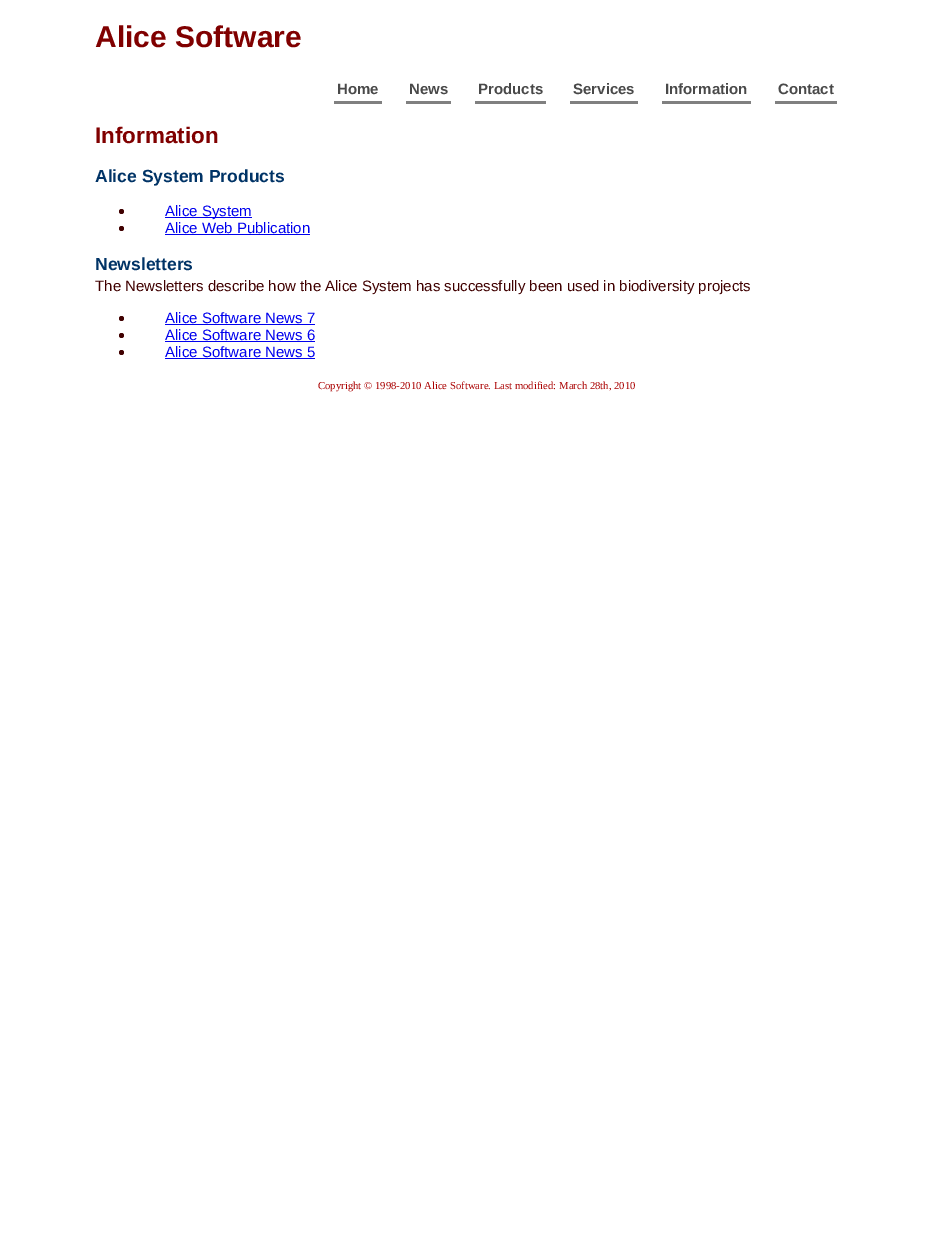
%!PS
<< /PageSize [952 1258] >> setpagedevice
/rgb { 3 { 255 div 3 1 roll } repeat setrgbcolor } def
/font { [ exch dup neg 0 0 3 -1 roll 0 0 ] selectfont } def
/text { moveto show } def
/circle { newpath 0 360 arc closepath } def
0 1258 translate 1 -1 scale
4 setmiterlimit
255 255 255 rgb
0 0 952 1258 rectfill
128 128 128 rgb
334 101 48 3 rectfill
406 101 45 3 rectfill
475 101 71 3 rectfill
570 101 68 3 rectfill
662 101 89 3 rectfill
775 101 62 3 rectfill
64 0 0 rgb
121.5 211.5 2.5 circle fill
0 0 238 rgb
165 217 87 1 rectfill
64 0 0 rgb
121.5 228.5 2.5 circle fill
0 0 238 rgb
165 234 145 1 rectfill
64 0 0 rgb
121.5 318.5 2.5 circle fill
0 0 238 rgb
165 324 150 1 rectfill
64 0 0 rgb
121.5 335.5 2.5 circle fill
0 0 238 rgb
165 341 150 1 rectfill
64 0 0 rgb
121.5 352.5 2.5 circle fill
0 0 238 rgb
165 358 150 1 rectfill
/LiberationSans-Bold 30 font
128 0 0 rgb
(Alice Software) 95 47 text
/LiberationSans-Bold 15 font
73 73 73 rgb
(Home) 337 94 text
(News) 409 94 text
(Products) 478 94 text
(Services) 573 94 text
(Information) 665 94 text
(Contact) 778 94 text
/LiberationSans-Bold 22.5 font
128 0 0 rgb
(Information) 95 143 text
/LiberationSans-Bold 17.5 font
0 51 102 rgb
(Alice System Products) 95 182 text
/LiberationSans-Regular 15 font
0 0 238 rgb
(Alice System) 165 216 text
(Alice Web Publication) 165 233 text
/LiberationSans-Bold 17.5 font
0 51 102 rgb
(Newsletters) 95 270 text
/LiberationSans-Regular 15 font
64 0 0 rgb
(The Newsletters describe how the Alice System has successfully been used in biodiversity projects) 95 291 text
0 0 238 rgb
(Alice Software News 7) 165 323 text
(Alice Software News 6) 165 340 text
(Alice Software News 5) 165 357 text
/LiberationSerif-Regular 10.7 font
170 0 0 rgb
(Copyright © 1998-2010 Alice Software. Last modified: March 28th, 2010) 318 389 text
showpage
